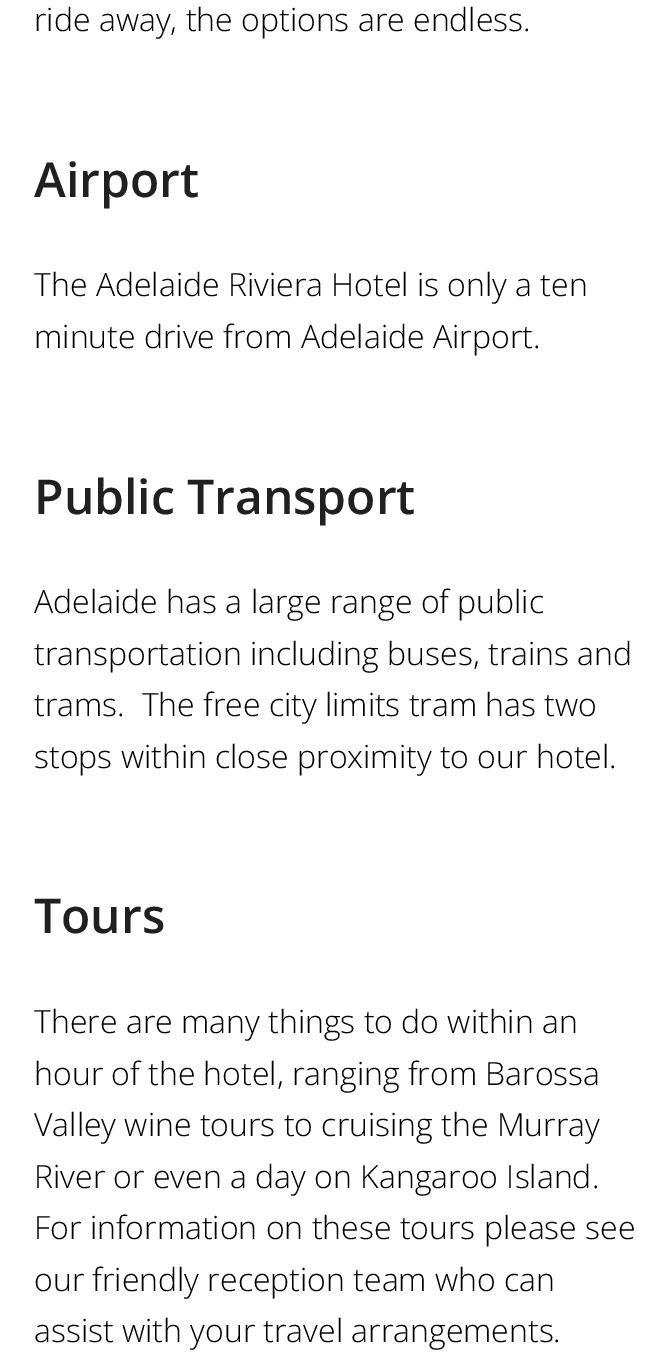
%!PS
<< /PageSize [672 1369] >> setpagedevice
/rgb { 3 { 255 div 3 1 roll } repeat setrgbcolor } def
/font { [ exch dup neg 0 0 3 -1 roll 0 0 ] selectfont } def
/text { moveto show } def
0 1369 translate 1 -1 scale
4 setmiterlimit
255 255 255 rgb
0 0 672 1369 rectfill
/OpenSans-Light 32 font
0 0 0 rgb
(ride away, the options are endless.) 34 31 text
/OpenSans-SemiBold 48 font
32 32 32 rgb
(Airport) 34 197 text
/OpenSans-Light 32 font
0 0 0 rgb
(The Adelaide Riviera Hotel is only a ten) 34 296 text
(minute drive from Adelaide Airport.) 34 348 text
/OpenSans-SemiBold 48 font
32 32 32 rgb
(Public Transport) 34 514 text
/OpenSans-Light 32 font
0 0 0 rgb
(Adelaide has a large range of public) 34 613 text
(transportation including buses, trains and) 34 665 text
(trams.  The free city limits tram has two) 34 716 text
(stops within close proximity to our hotel.) 34 768 text
/OpenSans-SemiBold 48 font
32 32 32 rgb
(Tours) 34 933 text
/OpenSans-Light 32 font
0 0 0 rgb
(There are many things to do within an) 34 1033 text
(hour of the hotel, ranging from Barossa) 34 1085 text
(Valley wine tours to cruising the Murray) 34 1136 text
(River or even a day on Kangaroo Island.) 34 1188 text
(For information on these tours please see) 34 1239 text
(our friendly reception team who can) 34 1291 text
(assist with your travel arrangements.) 34 1342 text
showpage
